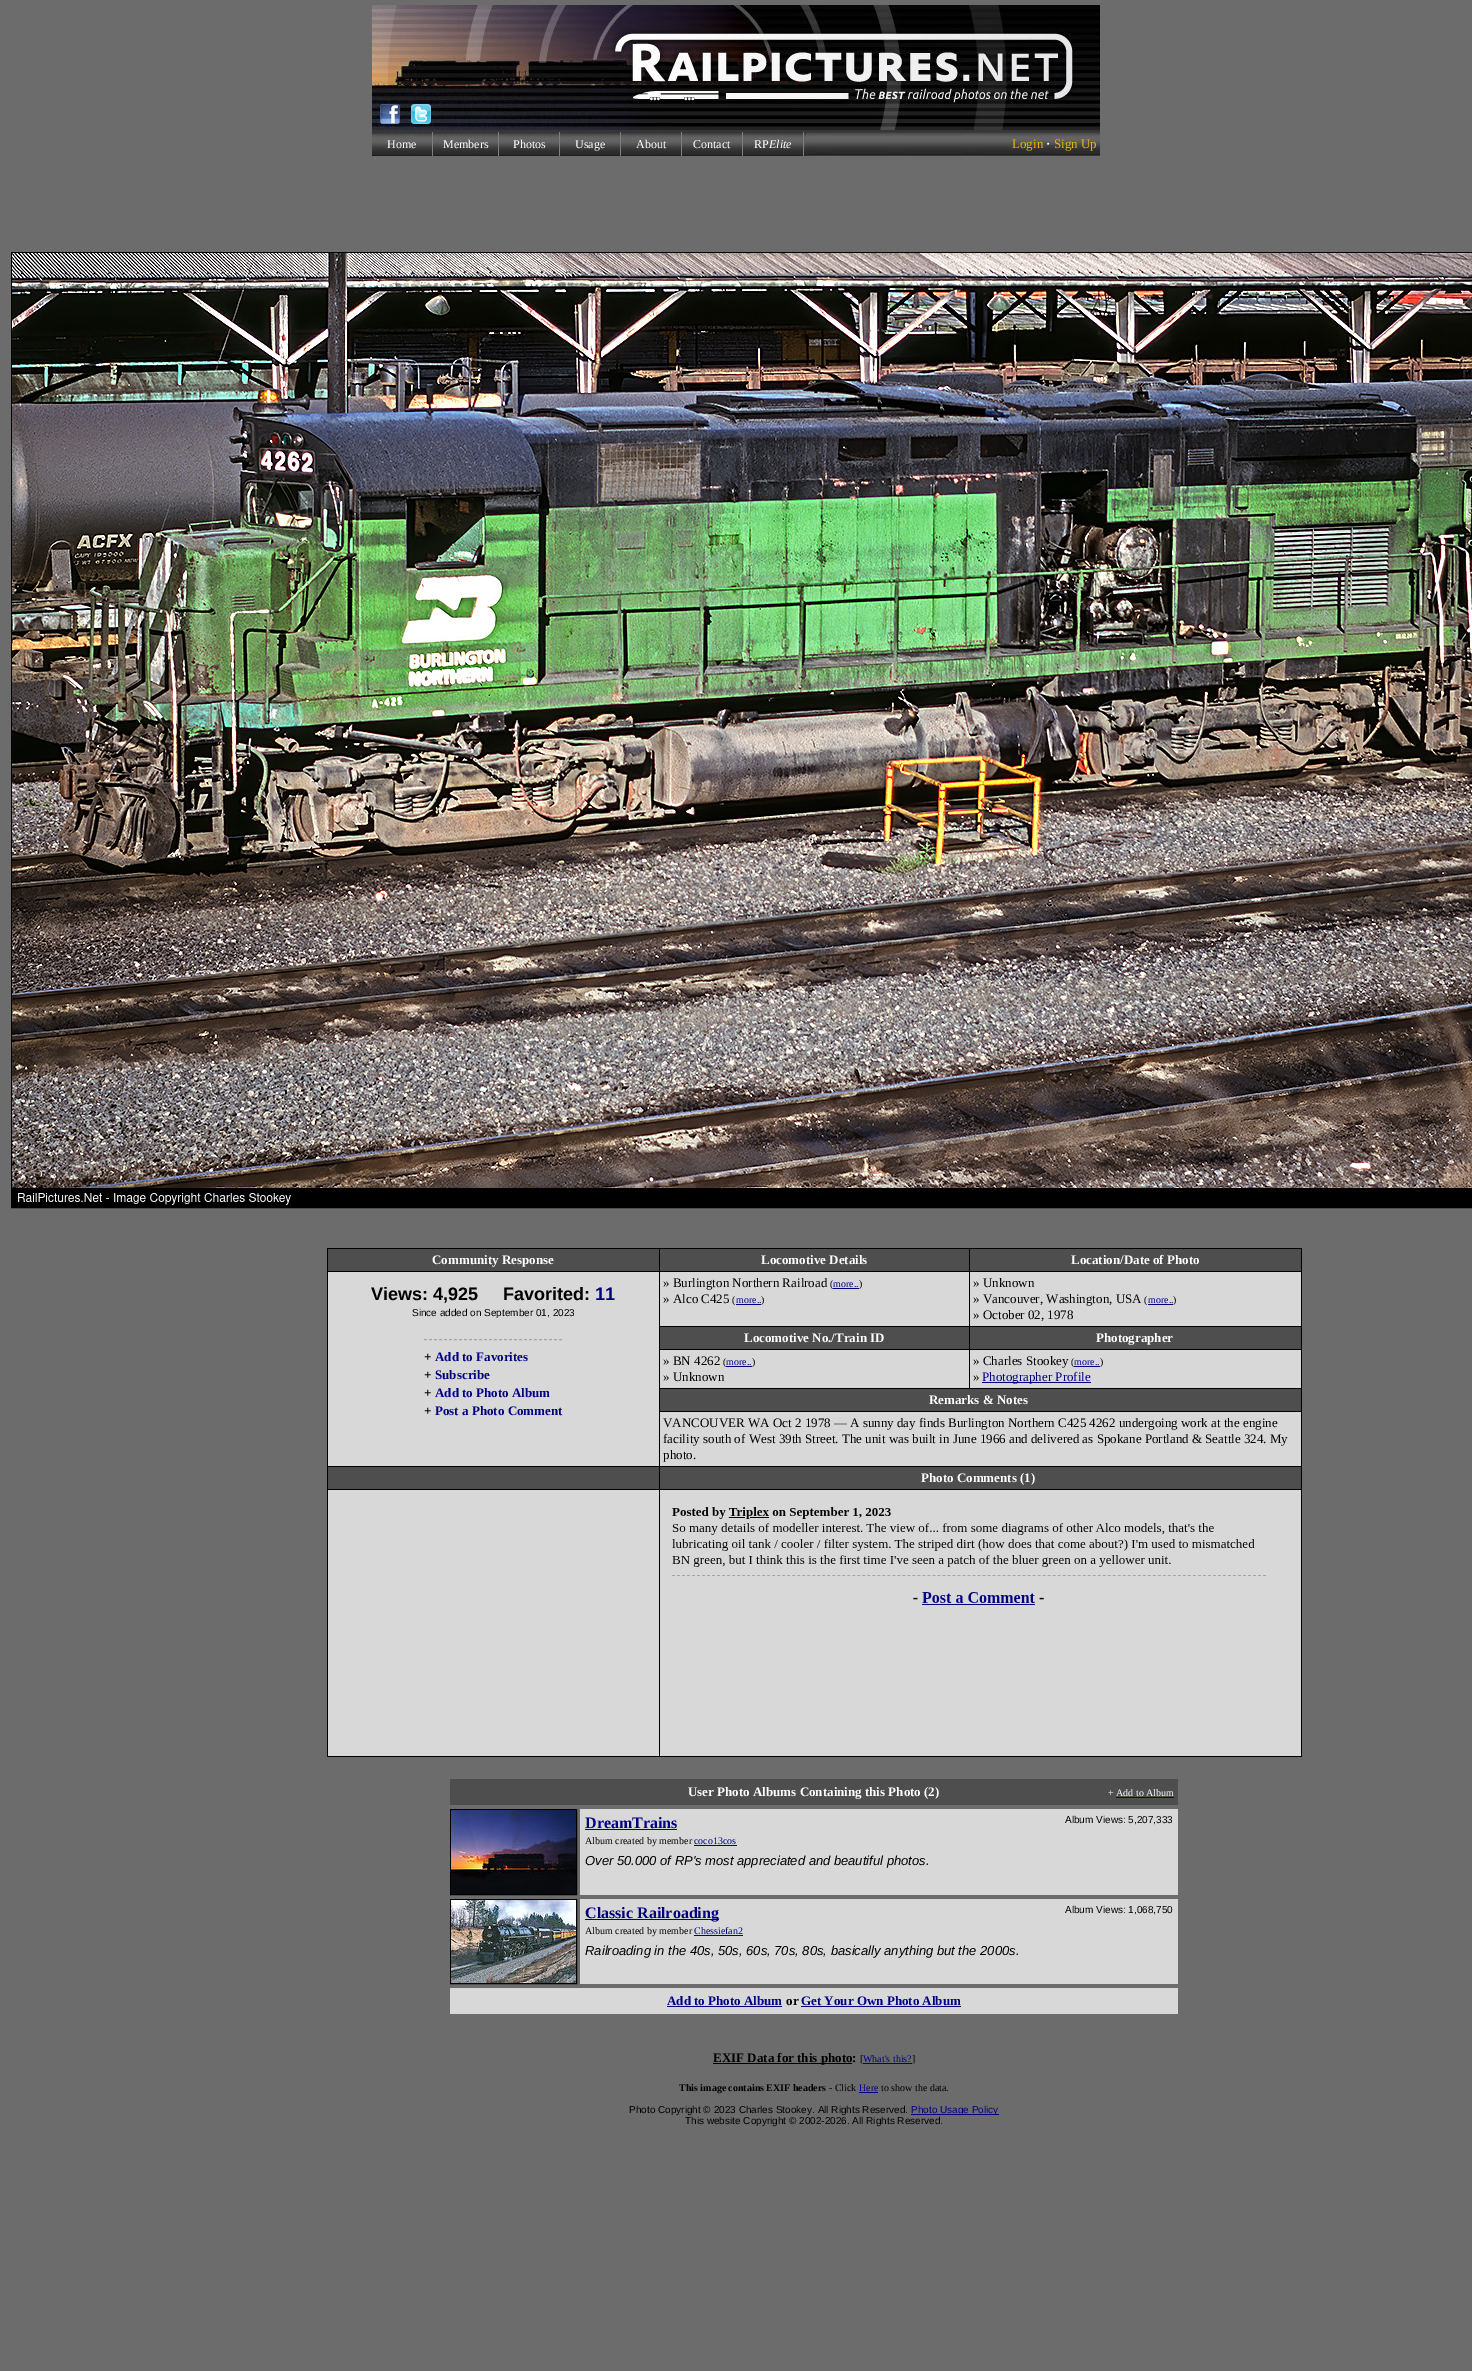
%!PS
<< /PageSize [1472 2371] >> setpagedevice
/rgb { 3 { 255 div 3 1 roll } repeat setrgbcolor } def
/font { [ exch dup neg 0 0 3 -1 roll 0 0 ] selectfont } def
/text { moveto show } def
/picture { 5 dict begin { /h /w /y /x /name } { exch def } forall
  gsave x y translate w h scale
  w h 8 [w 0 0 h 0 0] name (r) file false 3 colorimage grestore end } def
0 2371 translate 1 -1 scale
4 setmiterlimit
108 108 108 rgb
0 0 1472 2371 rectfill
(img_09.rgb) 372 130 728 26 picture
126 126 126 rgb
432 132 372 24 rectfill
(img_01.rgb) 372 132 60 24 picture
(img_02.rgb) 433 132 65 24 picture
(img_01.rgb) 499 132 60 24 picture
(img_01.rgb) 560 132 60 24 picture
(img_01.rgb) 621 132 60 24 picture
(img_01.rgb) 682 132 60 24 picture
(img_01.rgb) 743 132 60 24 picture
(img_03.rgb) 804 132 2 24 picture
(img_04.rgb) 372 5 728 93 picture
(img_05.rgb) 372 98 33 32 picture
(img_06.rgb) 405 98 32 32 picture
(img_07.rgb) 437 98 29 32 picture
(img_08.rgb) 466 98 634 32 picture
127 127 127 rgb
375 158 1 1 rectfill
0 0 0 rgb
11.5 252.5 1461 955 rectstroke
(img_10.rgb) 12 253 1460 954 picture
327 1248 975 509 rectfill
78 78 78 rgb
328 1249 331 22 rectfill
660 1249 309 22 rectfill
970 1249 331 22 rectfill
216 216 216 rgb
328 1272 331 194 rectfill
166 164 164 rgb
[3 2] 0 setdash
424 1339.5 moveto 138 0 rlineto stroke
216 216 216 rgb
660 1272 309 54 rectfill
0 0 128 rgb
736 1304 25 1 rectfill
216 216 216 rgb
970 1272 331 54 rectfill
0 0 128 rgb
1148 1304 25 1 rectfill
78 78 78 rgb
660 1327 309 22 rectfill
970 1327 331 22 rectfill
216 216 216 rgb
660 1350 309 38 rectfill
0 0 128 rgb
726 1366 26 1 rectfill
216 216 216 rgb
970 1350 331 38 rectfill
0 0 128 rgb
982 1382 109 1 rectfill
78 78 78 rgb
660 1389 641 22 rectfill
216 216 216 rgb
660 1412 641 54 rectfill
78 78 78 rgb
328 1467 331 22 rectfill
660 1467 641 22 rectfill
216 216 216 rgb
328 1490 331 266 rectfill
660 1490 641 266 rectfill
(img_11.rgb) 672 1507 594 98 picture
78 78 78 rgb
450 1779 728 26 rectfill
0 0 128 rgb
1116 1797 58 1 rectfill
0 0 0 rgb
[] 0 setdash
450.5 1809.5 126 85 rectstroke
(img_12.rgb) 451 1810 125 84 picture
216 216 216 rgb
580 1809 598 86 rectfill
0 0 128 rgb
585 1829 92 1 rectfill
694 1845 43 1 rectfill
0 0 0 rgb
450.5 1899.5 126 84 rectstroke
(img_13.rgb) 451 1900 125 83 picture
216 216 216 rgb
580 1899 598 85 rectfill
0 0 128 rgb
585 1919 134 1 rectfill
694 1935 49 1 rectfill
216 216 216 rgb
450 1988 728 26 rectfill
0 0 128 rgb
667 2006 115 1 rectfill
801 2006 160 1 rectfill
0 0 0 rgb
713 2063 139 1 rectfill
0 0 128 rgb
863 2063 49 1 rectfill
859 2092 19 1 rectfill
911 2114 88 1 rectfill
/LiberationSerif-Regular 12 font
255 255 255 rgb
(Home) 387 148 text
(Members) 443 148 text
(Photos) 513 148 text
(Usage) 575 148 text
(About) 636 148 text
(Contact) 693 148 text
(RP) 754 148 text
/LiberationSerif-Italic 12 font
(Elite) 769 148 text
/LiberationSerif-Regular 13 font
236 180 6 rgb
(Login) 1012 148 text
/LiberationSerif-Bold 13 font
243 243 243 rgb
(·) 1046 148 text
/LiberationSerif-Regular 13 font
236 180 6 rgb
(Sign Up) 1054 148 text
/LiberationSerif-Bold 13 font
255 255 255 rgb
(Community Response) 432 1264 text
(Locomotive Details) 761 1264 text
(Location/Date of Photo) 1071 1264 text
/LiberationSans-Bold 18 font
0 0 0 rgb
(Views: 4,925) 371 1300 text
(Favorited:) 503 1300 text
0 0 128 rgb
(11) 595 1300 text
/LiberationSans-Regular 10 font
0 0 0 rgb
(Since added on September 01, 2023) 412 1316 text
/LiberationSerif-Bold 13 font
(+) 424 1361 text
0 0 128 rgb
(Add to Favorites) 435 1361 text
0 0 0 rgb
(+) 424 1379 text
0 0 128 rgb
(Subscribe) 435 1379 text
0 0 0 rgb
(+) 424 1397 text
0 0 128 rgb
(Add to Photo Album) 435 1397 text
0 0 0 rgb
(+) 424 1415 text
0 0 128 rgb
(Post a Photo Comment) 435 1415 text
/LiberationSerif-Regular 13 font
0 0 0 rgb
(» Burlington Northern Railroad) 663 1287 text
/LiberationSerif-Regular 10 font
(\() 830 1287 text
0 0 128 rgb
833 1288 26 1 rectfill
(more..) 833 1287 text
0 0 0 rgb
(\)) 859 1287 text
/LiberationSerif-Regular 13 font
(» Alco C425) 663 1303 text
/LiberationSerif-Regular 10 font
(\() 732 1303 text
0 0 128 rgb
(more..) 736 1303 text
0 0 0 rgb
(\)) 761 1303 text
/LiberationSerif-Regular 13 font
(» Unknown) 973 1287 text
(» Vancouver, Washington, USA) 973 1303 text
/LiberationSerif-Regular 10 font
(\() 1144 1303 text
0 0 128 rgb
(more..) 1148 1303 text
0 0 0 rgb
(\)) 1173 1303 text
/LiberationSerif-Regular 13 font
(» October 02, 1978) 973 1319 text
/LiberationSerif-Bold 13 font
255 255 255 rgb
(Locomotive No./Train ID) 744 1342 text
(Photographer) 1096 1342 text
/LiberationSerif-Regular 13 font
0 0 0 rgb
(» BN 4262) 663 1365 text
/LiberationSerif-Regular 10 font
(\() 723 1365 text
0 0 128 rgb
(more..) 726 1365 text
0 0 0 rgb
(\)) 752 1365 text
/LiberationSerif-Regular 13 font
(» Unknown) 663 1381 text
(» Charles Stookey) 973 1365 text
/LiberationSerif-Regular 10 font
(\() 1071 1365 text
0 0 128 rgb
1074 1366 26 1 rectfill
(more..) 1074 1365 text
0 0 0 rgb
(\)) 1100 1365 text
/LiberationSerif-Regular 13 font
(») 973 1381 text
0 0 128 rgb
(Photographer Profile) 982 1381 text
/LiberationSerif-Bold 13 font
255 255 255 rgb
(Remarks & Notes) 929 1404 text
/LiberationSerif-Regular 13 font
0 0 0 rgb
(VANCOUVER WA Oct 2 1978 — A sunny day finds Burlington Northern C425 4262 undergoing work at the engine) 663 1427 text
(facility south of West 39th Street. The unit was built in June 1966 and delivered as Spokane Portland & Seattle 324. My) 663 1443 text
(photo.) 663 1459 text
/LiberationSerif-Bold 13 font
255 255 255 rgb
(Photo Comments \(1\)) 921 1482 text
(User Photo Albums Containing this Photo \(2\)) 688 1796 text
/LiberationSerif-Regular 10 font
(+ Add to Album) 1108 1796 text
/LiberationSerif-Bold 16 font
0 0 128 rgb
(DreamTrains) 585 1828 text
/LiberationSerif-Regular 10 font
0 0 0 rgb
(Album created by member) 585 1844 text
0 0 128 rgb
(coco13cos) 694 1844 text
/LiberationSans-Regular 10 font
0 0 0 rgb
(Album Views: 5,207,333) 1065 1823 text
/LiberationSans-Italic 13 font
(Over 50.000 of RP's most appreciated and beautiful photos.) 585 1865 text
/LiberationSerif-Bold 16 font
0 0 128 rgb
(Classic Railroading) 585 1918 text
/LiberationSerif-Regular 10 font
0 0 0 rgb
(Album created by member) 585 1934 text
0 0 128 rgb
(Chessiefan2) 694 1934 text
/LiberationSans-Regular 10 font
0 0 0 rgb
(Album Views: 1,068,750) 1065 1913 text
/LiberationSans-Italic 13 font
(Railroading in the 40s, 50s, 60s, 70s, 80s, basically anything but the 2000s.) 585 1955 text
/LiberationSerif-Bold 13 font
0 0 128 rgb
(Add to Photo Album) 667 2005 text
0 0 0 rgb
(or) 786 2005 text
0 0 128 rgb
(Get Your Own Photo Album) 801 2005 text
0 0 0 rgb
(EXIF Data for this photo:) 713 2062 text
/LiberationSerif-Regular 10 font
([) 860 2062 text
0 0 128 rgb
(What's this?) 863 2062 text
0 0 0 rgb
(]) 912 2062 text
/LiberationSerif-Bold 10 font
(This image contains EXIF headers) 679 2091 text
/LiberationSerif-Regular 10 font
(- Click) 829 2091 text
0 0 128 rgb
(Here) 859 2091 text
0 0 0 rgb
(to show the data.) 881 2091 text
/LiberationSans-Regular 10 font
(Photo Copyright © 2023 Charles Stookey. All Rights Reserved.) 629 2113 text
0 0 128 rgb
(Photo Usage Policy) 911 2113 text
0 0 0 rgb
(This website Copyright © 2002-2026. All Rights Reserved.) 685 2124 text
showpage
